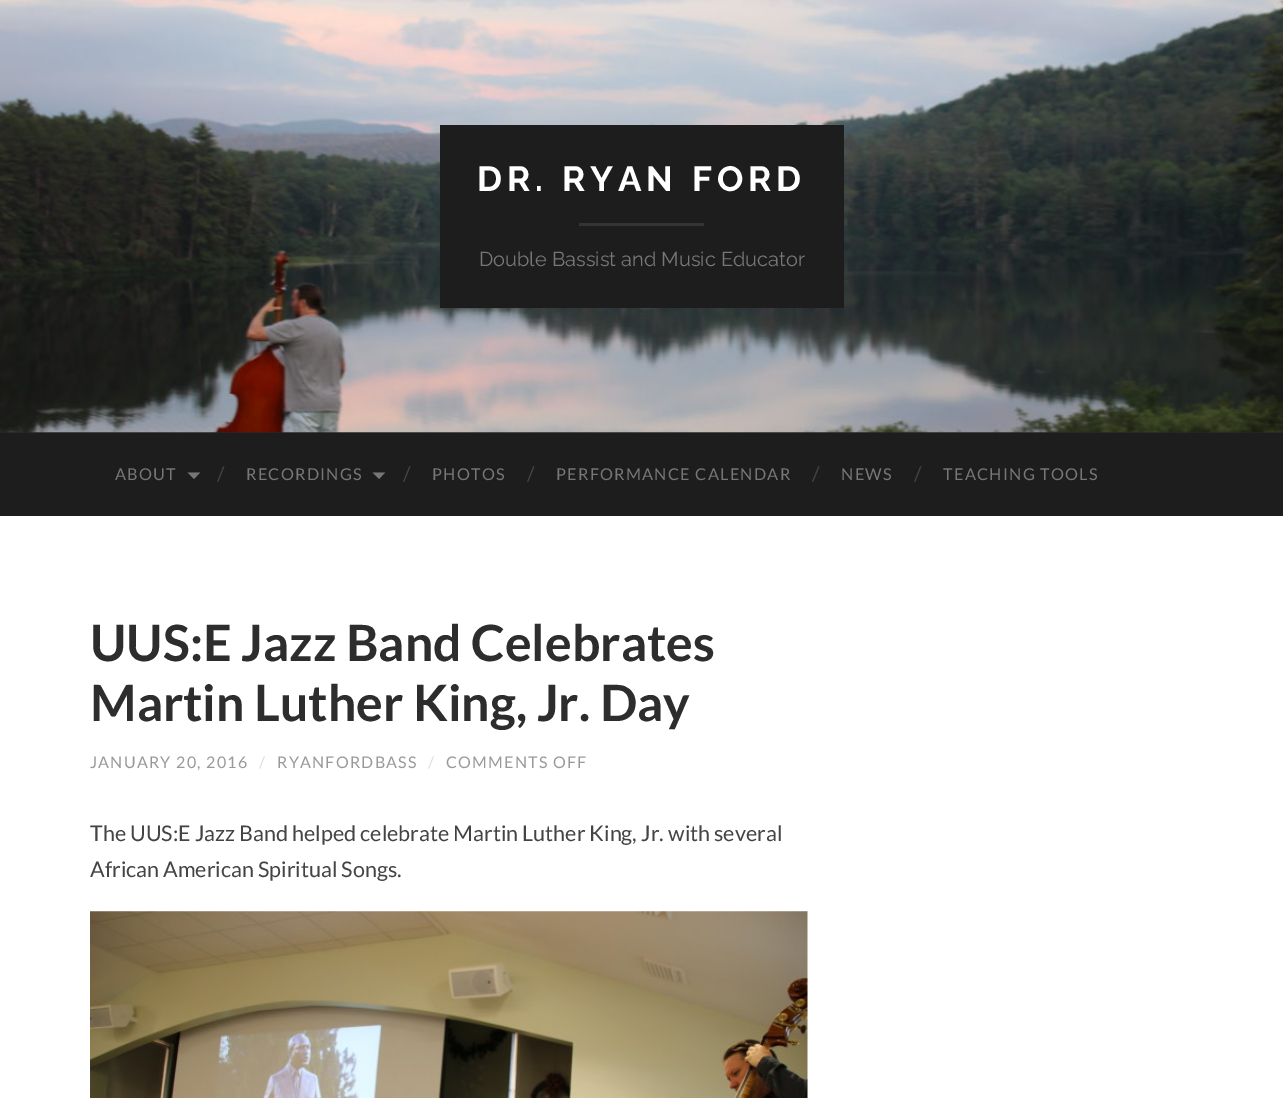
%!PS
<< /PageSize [1283 1098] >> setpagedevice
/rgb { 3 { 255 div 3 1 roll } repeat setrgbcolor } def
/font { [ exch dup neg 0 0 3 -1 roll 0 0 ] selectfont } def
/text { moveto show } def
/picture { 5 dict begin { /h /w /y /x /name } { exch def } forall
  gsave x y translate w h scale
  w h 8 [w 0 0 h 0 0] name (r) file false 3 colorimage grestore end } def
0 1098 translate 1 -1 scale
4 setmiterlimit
255 255 255 rgb
0 0 1283 1098 rectfill
38 38 38 rgb
0 432 1283 1 rectfill
(img_01.rgb) 0 0 1283 433 picture
29 29 29 rgb
440 125 404 183 rectfill
52 52 52 rgb
579 223 125 3 rectfill
29 29 29 rgb
0 433 1283 83 rectfill
119 119 119 rgb
187.5 472.5 moveto 12.5 0 rlineto -6 6.5 rlineto closepath fill
372.5 472.5 moveto 12.5 0 rlineto -6 6.5 rlineto closepath fill
(img_02.rgb) 90 911 718 187 picture
/Raleway-Bold 35 font
255 255 255 rgb
477 191 moveto 5 0 (DR. RYAN FORD) ashow
/Raleway-Regular 20 font
119 119 119 rgb
(Double Bassist and Music Educator) 479 266 text
/Lato-Regular 16.25 font
115 480 moveto 1.25 0 (ABOUT) ashow
/Lato-Regular 20 font
68 68 68 rgb
(/) 217 481 text
/Lato-Regular 16.25 font
119 119 119 rgb
246 480 moveto 1.25 0 (RECORDINGS) ashow
/Lato-Regular 20 font
68 68 68 rgb
(/) 403 481 text
/Lato-Regular 16.25 font
119 119 119 rgb
432 480 moveto 1.25 0 (PHOTOS) ashow
/Lato-Regular 20 font
68 68 68 rgb
(/) 527 481 text
/Lato-Regular 16.25 font
119 119 119 rgb
556 480 moveto 1.25 0 (PERFORMANCE CALENDAR) ashow
/Lato-Regular 20 font
68 68 68 rgb
(/) 812 481 text
/Lato-Regular 16.25 font
119 119 119 rgb
841 480 moveto 1.25 0 (NEWS) ashow
/Lato-Regular 20 font
68 68 68 rgb
(/) 914 481 text
/Lato-Regular 16.25 font
119 119 119 rgb
943 480 moveto 1.25 0 (TEACHING TOOLS) ashow
/Lato-Bold 50 font
45 45 45 rgb
(UUS:E Jazz Band Celebrates) 90 661 text
(Martin Luther King, Jr. Day) 90 721 text
/Lato-Regular 16 font
153 153 153 rgb
90 768 moveto 1.25 0 (JANUARY 20, 2016) ashow
221 221 221 rgb
259 768 moveto 1.25 0 (/) ashow
153 153 153 rgb
277 768 moveto 1.25 0 (RYANFORDBASS) ashow
221 221 221 rgb
428 768 moveto 1.25 0 (/) ashow
153 153 153 rgb
446 768 moveto 1.25 0 (COMMENTS OFF) ashow
/Lato-Regular 21.5 font
68 68 68 rgb
(The UUS:E Jazz Band helped celebrate Martin Luther King, Jr. with several) 90 841 text
(African American Spiritual Songs.) 90 877 text
showpage
